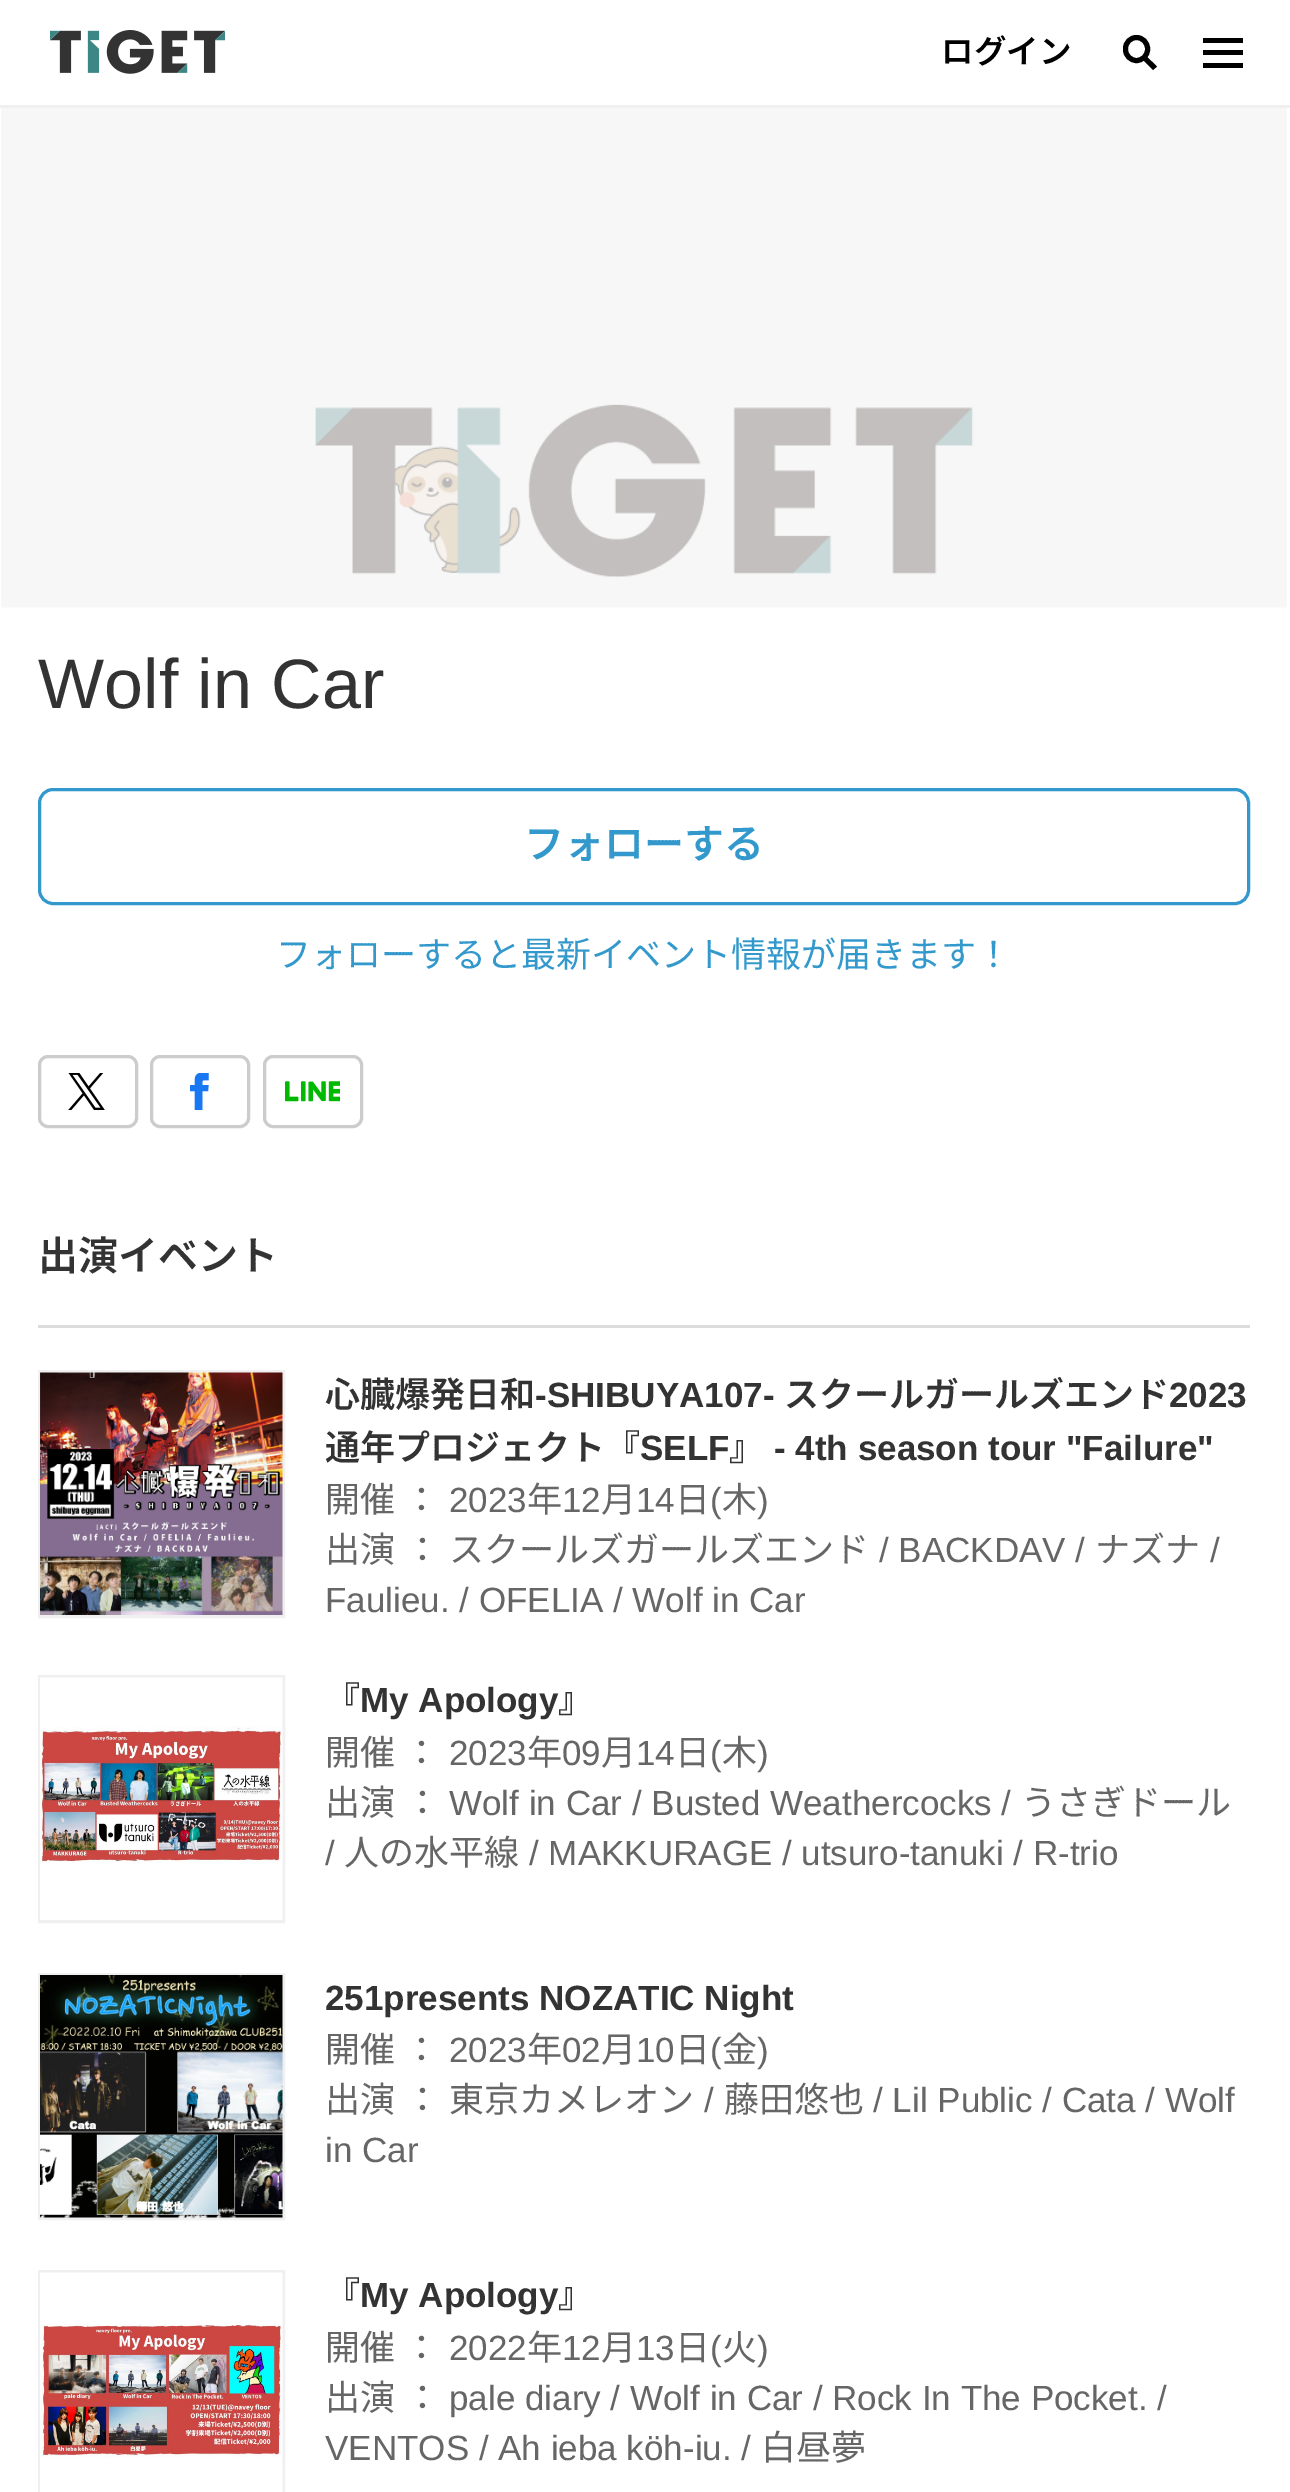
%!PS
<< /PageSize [1290 2492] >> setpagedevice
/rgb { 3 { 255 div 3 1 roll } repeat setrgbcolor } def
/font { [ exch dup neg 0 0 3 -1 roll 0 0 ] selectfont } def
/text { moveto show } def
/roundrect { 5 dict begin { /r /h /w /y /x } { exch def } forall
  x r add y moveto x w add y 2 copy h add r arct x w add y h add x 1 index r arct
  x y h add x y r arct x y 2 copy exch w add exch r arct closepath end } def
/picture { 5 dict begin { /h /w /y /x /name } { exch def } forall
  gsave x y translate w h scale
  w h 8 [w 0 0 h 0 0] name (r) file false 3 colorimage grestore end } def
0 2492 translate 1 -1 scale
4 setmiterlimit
255 255 255 rgb
0 0 1290 2492 rectfill
240 240 240 rgb
0 105 1290 3 rectfill
(img_01.rgb) 50 30 175 44 picture
0 0 0 rgb
5 setlinewidth
1125.5 37.5 22 23 11 roundrect stroke
1146 56 moveto 11 10.5 rlineto -4 3.5 rlineto -10.5 -10.5 rlineto closepath fill
1203 38 40 5 rectfill
1203 50 40 5 rectfill
1203 63 40 5 rectfill
(img_02.rgb) 1 108 1286 500 picture
51 153 204 rgb
3 setlinewidth
39.5 789.5 1209 114 13.5 roundrect stroke
204 204 204 rgb
39.5 1056.5 97 70 8.5 roundrect stroke
(img_03.rgb) 68 1073 37 37 picture
151.5 1056.5 97 70 8.5 roundrect stroke
(img_04.rgb) 190 1073 19 37 picture
264.5 1056.5 97 70 8.5 roundrect stroke
(img_05.rgb) 285 1081 55 21 picture
220 220 220 rgb
38 1325 1212 3 rectfill
240 240 240 rgb
39.5 1371.5 244 245 rectstroke
(img_06.rgb) 40 1372 243 243 picture
39.5 1676.5 244 245 rectstroke
(img_07.rgb) 40 1677 243 243 picture
39.5 1974.5 244 244 rectstroke
(img_08.rgb) 40 1975 243 243 picture
39.5 2271.5 244 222 rectstroke
(img_09.rgb) 40 2272 243 220 picture
/NotoSansJP-SemiBold 32.5 font
0 0 0 rgb
(ログイン) 941 63 text
/LiberationSans-Regular 70 font
51 51 51 rgb
(Wolf in Car) 38 708 text
/NotoSansJP-SemiBold 40 font
51 153 204 rgb
(フォローする) 524 858 text
/NotoSansJP-Regular 35 font
(フォローすると最新イベント情報が届きます！) 276 967 text
/NotoSansJP-SemiBold 40 font
51 51 51 rgb
(出演イベント) 38 1270 text
/NotoSansJP-SemiBold 35 font
(心臓爆発日和) 325 1407 text
/LiberationSans-Bold 35 font
(-SHIBUYA107-) 535 1407 text
/NotoSansJP-SemiBold 35 font
(スクールガールズエンド) 784 1407 text
/LiberationSans-Bold 35 font
(2023) 1169 1407 text
/NotoSansJP-SemiBold 35 font
(通年プロジェクト『) 325 1460 text
/LiberationSans-Bold 35 font
(SELF) 640 1460 text
/NotoSansJP-SemiBold 35 font
(』) 729 1460 text
/LiberationSans-Bold 35 font
(- 4th season tour "Failure") 774 1460 text
/NotoSansJP-Regular 35 font
102 102 102 rgb
325 1512 moveto 1 0 32 (開催 ：) widthshow
/LiberationSans-Regular 35 font
(2023) 449 1512 text
/NotoSansJP-Regular 35 font
(年) 527 1512 text
/LiberationSans-Regular 35 font
(12) 562 1512 text
/NotoSansJP-Regular 35 font
(月) 601 1512 text
/LiberationSans-Regular 35 font
(14) 636 1512 text
/NotoSansJP-Regular 35 font
(日) 675 1512 text
/LiberationSans-Regular 35 font
(\() 710 1512 text
/NotoSansJP-Regular 35 font
(木) 722 1512 text
/LiberationSans-Regular 35 font
(\)) 757 1512 text
/NotoSansJP-Regular 35 font
(出演) 325 1562 text
(：) 405 1562 text
(スクールズガールズエンド) 449 1562 text
/LiberationSans-Regular 35 font
(/ BACKDAV /) 879 1562 text
/NotoSansJP-Regular 35 font
(ナズナ) 1095 1562 text
/LiberationSans-Regular 35 font
(/) 1210 1562 text
(Faulieu. / OFELIA / Wolf in Car) 325 1612 text
/NotoSansJP-SemiBold 35 font
51 51 51 rgb
(『) 325 1712 text
/LiberationSans-Bold 35 font
(My Apology) 360 1712 text
/NotoSansJP-SemiBold 35 font
(』) 558 1712 text
/NotoSansJP-Regular 35 font
102 102 102 rgb
325 1765 moveto 1 0 32 (開催 ：) widthshow
/LiberationSans-Regular 35 font
(2023) 449 1765 text
/NotoSansJP-Regular 35 font
(年) 527 1765 text
/LiberationSans-Regular 35 font
(09) 562 1765 text
/NotoSansJP-Regular 35 font
(月) 601 1765 text
/LiberationSans-Regular 35 font
(14) 636 1765 text
/NotoSansJP-Regular 35 font
(日) 675 1765 text
/LiberationSans-Regular 35 font
(\() 710 1765 text
/NotoSansJP-Regular 35 font
(木) 722 1765 text
/LiberationSans-Regular 35 font
(\)) 757 1765 text
/NotoSansJP-Regular 35 font
(出演) 325 1815 text
(：) 405 1815 text
/LiberationSans-Regular 35 font
(Wolf in Car / Busted Weathercocks /) 449 1815 text
/NotoSansJP-Regular 35 font
(うさぎドール) 1021 1815 text
/LiberationSans-Regular 35 font
(/) 325 1865 text
/NotoSansJP-Regular 35 font
(人の水平線) 344 1865 text
/LiberationSans-Regular 35 font
(/ MAKKURAGE / utsuro-tanuki / R-trio) 529 1865 text
/LiberationSans-Bold 35 font
51 51 51 rgb
(251presents NOZATIC Night) 325 2010 text
/NotoSansJP-Regular 35 font
102 102 102 rgb
325 2062 moveto 1 0 32 (開催 ：) widthshow
/LiberationSans-Regular 35 font
(2023) 449 2062 text
/NotoSansJP-Regular 35 font
(年) 527 2062 text
/LiberationSans-Regular 35 font
(02) 562 2062 text
/NotoSansJP-Regular 35 font
(月) 601 2062 text
/LiberationSans-Regular 35 font
(10) 636 2062 text
/NotoSansJP-Regular 35 font
(日) 675 2062 text
/LiberationSans-Regular 35 font
(\() 710 2062 text
/NotoSansJP-Regular 35 font
(金) 722 2062 text
/LiberationSans-Regular 35 font
(\)) 757 2062 text
/NotoSansJP-Regular 35 font
(出演) 325 2112 text
(：) 405 2112 text
(東京カメレオン) 449 2112 text
/LiberationSans-Regular 35 font
(/) 704 2112 text
/NotoSansJP-Regular 35 font
(藤田悠也) 724 2112 text
/LiberationSans-Regular 35 font
(/ Lil Public / Cata / Wolf) 873 2112 text
(in Car) 325 2162 text
/NotoSansJP-SemiBold 35 font
51 51 51 rgb
(『) 325 2307 text
/LiberationSans-Bold 35 font
(My Apology) 360 2307 text
/NotoSansJP-SemiBold 35 font
(』) 558 2307 text
/NotoSansJP-Regular 35 font
102 102 102 rgb
325 2360 moveto 1 0 32 (開催 ：) widthshow
/LiberationSans-Regular 35 font
(2022) 449 2360 text
/NotoSansJP-Regular 35 font
(年) 527 2360 text
/LiberationSans-Regular 35 font
(12) 562 2360 text
/NotoSansJP-Regular 35 font
(月) 601 2360 text
/LiberationSans-Regular 35 font
(13) 636 2360 text
/NotoSansJP-Regular 35 font
(日) 675 2360 text
/LiberationSans-Regular 35 font
(\() 710 2360 text
/NotoSansJP-Regular 35 font
(火) 722 2360 text
/LiberationSans-Regular 35 font
(\)) 757 2360 text
/NotoSansJP-Regular 35 font
(出演) 325 2410 text
(：) 405 2410 text
/LiberationSans-Regular 35 font
(pale diary / Wolf in Car / Rock In The Pocket. /) 449 2410 text
(VENTOS / Ah ieba köh-iu. /) 325 2460 text
/NotoSansJP-Regular 35 font
(白昼夢) 761 2460 text
showpage
